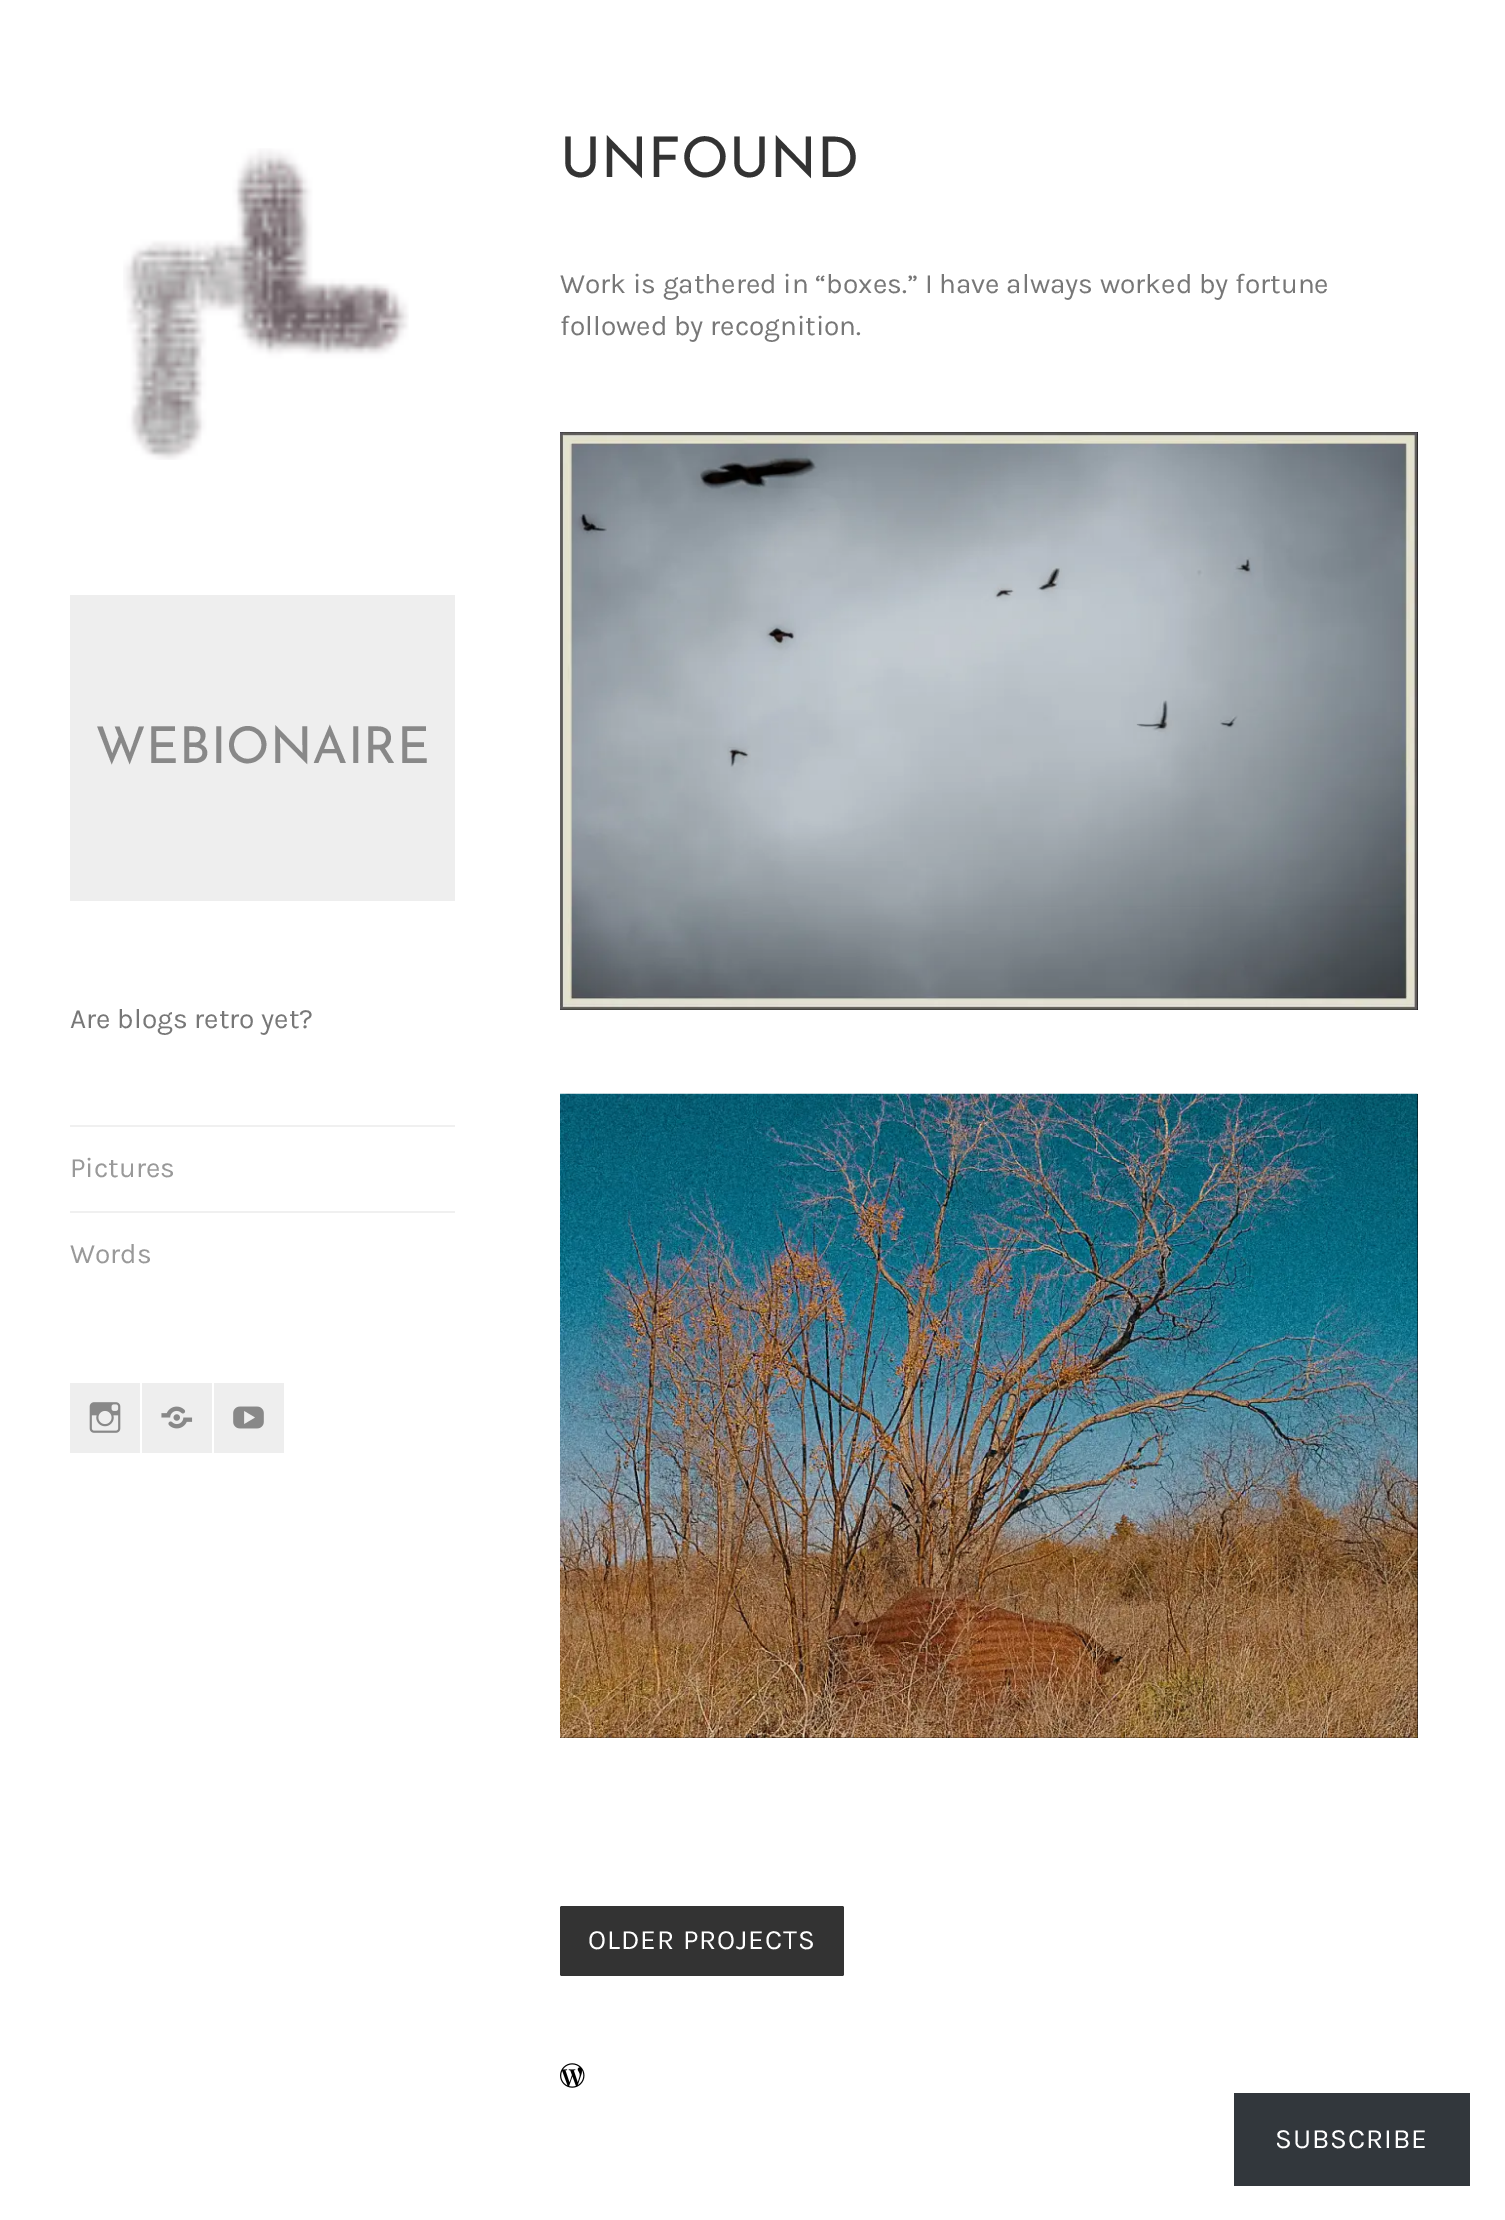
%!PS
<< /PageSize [1505 2220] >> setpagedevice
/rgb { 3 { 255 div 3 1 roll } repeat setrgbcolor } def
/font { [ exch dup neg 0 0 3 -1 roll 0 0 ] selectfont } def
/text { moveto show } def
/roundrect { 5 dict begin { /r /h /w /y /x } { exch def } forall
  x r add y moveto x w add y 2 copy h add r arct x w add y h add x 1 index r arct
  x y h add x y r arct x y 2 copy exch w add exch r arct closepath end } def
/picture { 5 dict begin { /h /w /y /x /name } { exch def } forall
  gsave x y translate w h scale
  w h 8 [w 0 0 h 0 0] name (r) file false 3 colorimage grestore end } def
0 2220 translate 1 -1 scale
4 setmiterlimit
255 255 255 rgb
0 0 1505 2220 rectfill
(img_01.rgb) 123 148 286 312 picture
238 238 238 rgb
70 595 385 306 rectfill
240 240 240 rgb
70 1125 385 2 rectfill
70 1211 385 2 rectfill
238 238 238 rgb
70 1383 70 70 rectfill
(img_02.rgb) 89 1402 32 31 picture
142 1383 70 70 rectfill
(img_03.rgb) 161 1406 32 23 picture
214 1383 70 70 rectfill
(img_04.rgb) 233 1406 31 23 picture
0 0 0 rgb
560 432 858 578 rectfill
(img_05.rgb) 560 432 858 578 picture
560 1094 858 644 rectfill
(img_06.rgb) 560 1093 858 645 picture
51 51 51 rgb
560 1906 284 70 2 roundrect fill
(img_07.rgb) 560 2063 25 25 picture
50 55 60 rgb
1234 2093 236 93 rectfill
/JosefinSans-Thin 50.75 font
136 136 136 rgb
(WEBIONAIRE) 95 763 text
/Karla-Regular 28 font
119 119 119 rgb
(Are blogs retro yet?) 70 1028 text
153 153 153 rgb
(Pictures) 70 1177 text
(Words) 70 1263 text
/JosefinSans-Thin 56 font
51 51 51 rgb
(UNFOUND) 560 177 text
/Karla-Regular 28 font
119 119 119 rgb
(Work is gathered in “boxes.” I have always worked by fortune) 560 293 text
(followed by recognition.) 560 335 text
255 255 255 rgb
588 1949 moveto 0.9 0 (OLDER PROJECTS) ashow
1275 2148 moveto 0.9 0 (SUBSCRIBE) ashow
showpage
